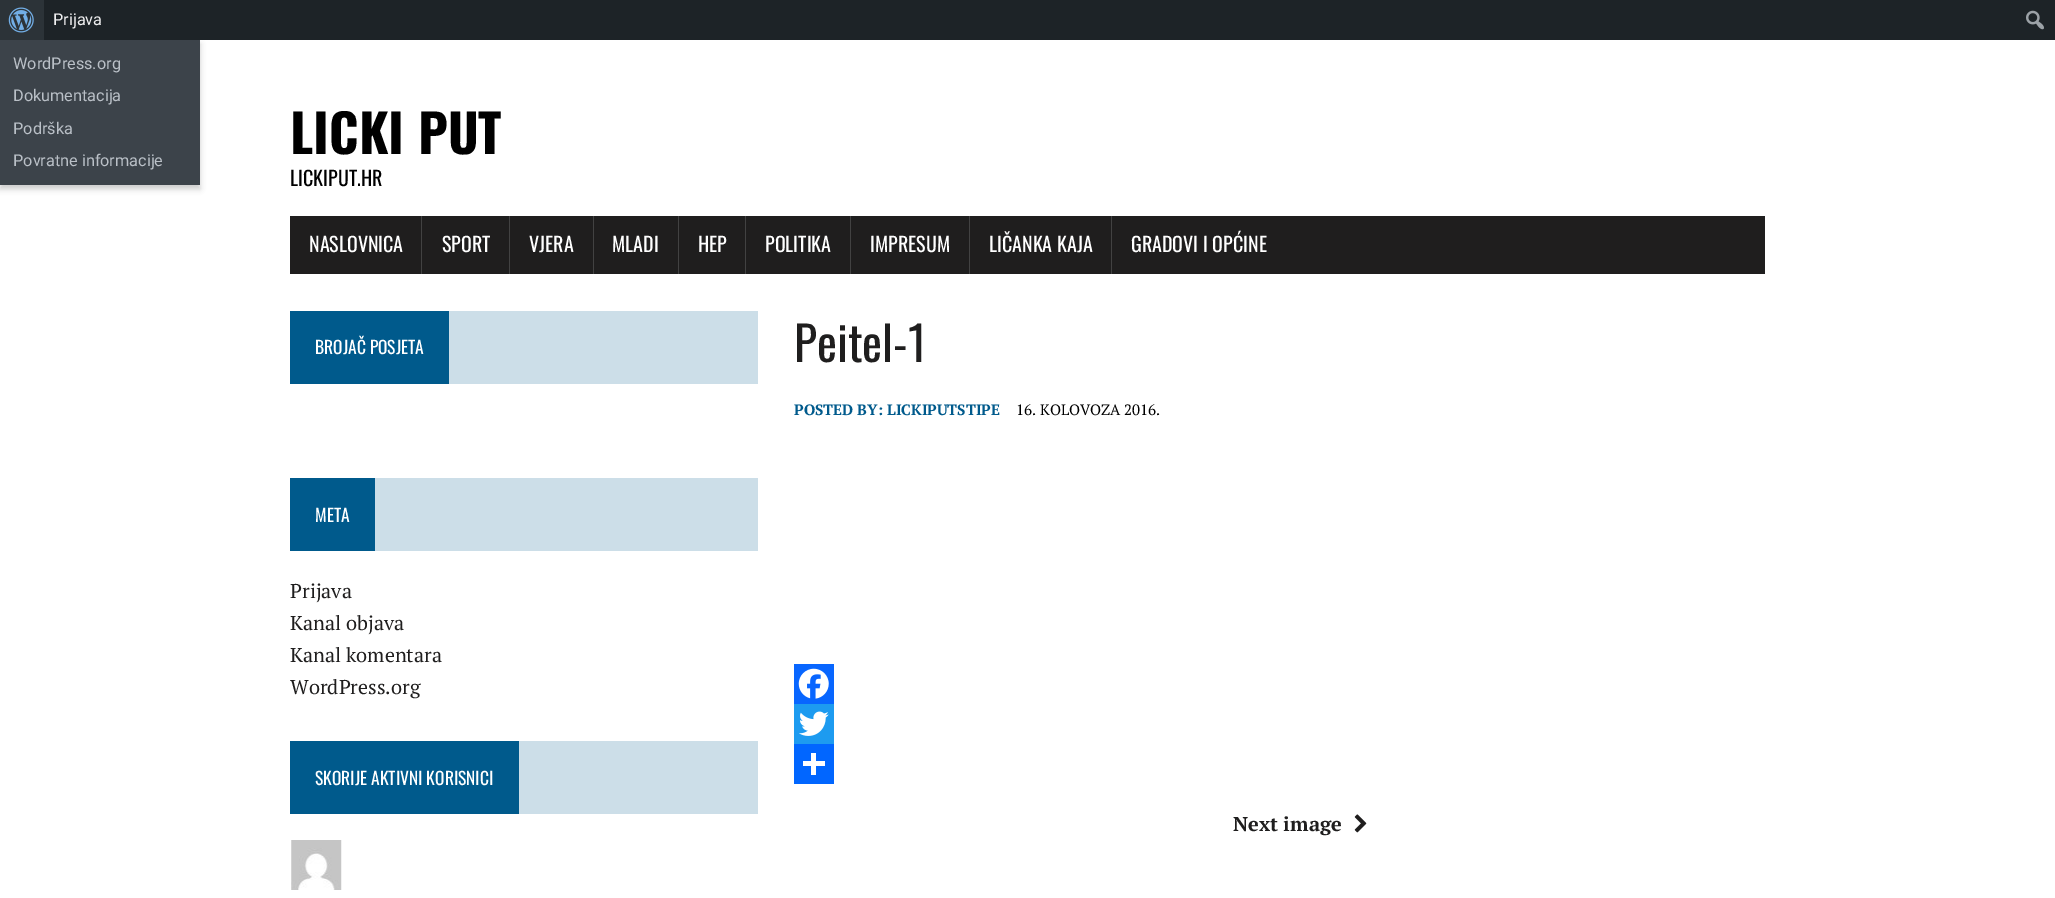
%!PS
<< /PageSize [2055 898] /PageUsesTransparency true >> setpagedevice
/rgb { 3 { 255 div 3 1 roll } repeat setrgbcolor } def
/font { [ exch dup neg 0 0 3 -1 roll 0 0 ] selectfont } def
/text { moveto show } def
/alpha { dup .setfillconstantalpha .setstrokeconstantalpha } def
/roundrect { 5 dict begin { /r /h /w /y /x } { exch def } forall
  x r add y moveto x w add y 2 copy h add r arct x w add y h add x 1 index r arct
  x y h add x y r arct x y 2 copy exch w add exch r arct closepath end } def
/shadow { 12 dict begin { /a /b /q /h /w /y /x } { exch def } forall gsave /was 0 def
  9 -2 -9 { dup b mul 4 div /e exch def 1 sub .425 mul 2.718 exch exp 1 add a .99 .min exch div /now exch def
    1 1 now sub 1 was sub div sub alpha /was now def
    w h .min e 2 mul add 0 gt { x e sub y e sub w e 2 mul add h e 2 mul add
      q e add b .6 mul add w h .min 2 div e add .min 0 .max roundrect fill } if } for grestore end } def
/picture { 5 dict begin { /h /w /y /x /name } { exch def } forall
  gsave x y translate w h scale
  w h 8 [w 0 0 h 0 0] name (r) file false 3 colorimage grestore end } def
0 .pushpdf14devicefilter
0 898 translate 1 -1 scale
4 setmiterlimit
255 255 255 rgb
0 0 2055 898 rectfill
29 35 39 rgb
44 0 2011 40 rectfill
44 51 56 rgb
0 0 44 40 rectfill
(img_01.rgb) 8 7 26 26 picture
0 0 0 rgb
0 44 200 145 0 3 0.2 shadow
60 67 74 rgb
0 40 200 145 rectfill
(img_02.rgb) 2026 10 18 20 picture
31 30 30 rgb
290 216 1475 58 rectfill
66 66 66 rgb
421 216 1 58 rectfill
509 216 1 58 rectfill
593 216 1 58 rectfill
678 216 1 58 rectfill
745 216 1 58 rectfill
850 216 1 58 rectfill
969 216 1 58 rectfill
1111 216 1 58 rectfill
204 222 232 rgb
449 311 309 73 rectfill
0 90 140 rgb
290 311 159 73 rectfill
204 222 232 rgb
375 478 383 73 rectfill
0 90 140 rgb
290 478 85 73 rectfill
204 222 232 rgb
519 741 239 73 rectfill
0 90 140 rgb
290 741 229 73 rectfill
(img_03.rgb) 291 840 51 50 picture
8 102 255 rgb
794 664 40 40 rectfill
(img_04.rgb) 798 668 31 31 picture
29 155 240 rgb
794 704 40 40 rectfill
(img_05.rgb) 799 711 30 25 picture
1 102 255 rgb
794 744 40 40 rectfill
255 255 255 rgb
811 753 5 22 rectfill
803 761 22 5 rectfill
(img_06.rgb) 1354 814 13 19 picture
/Roboto-Regular 16.25 font
240 240 241 rgb
(Prijava) 53 25 text
186 192 199 rgb
(WordPress.org) 13 69 text
(Dokumentacija) 13 101 text
(Podrška) 13 134 text
(Povratne informacije) 13 166 text
/Oswald-Bold 52.5 font
0 0 0 rgb
(LICKI PUT) 290 154 text
/Oswald-Regular 20 font
(LICKIPUT.HR) 290 186 text
255 255 255 rgb
(NASLOVNICA) 309 252 text
(SPORT) 442 252 text
(VJERA) 529 252 text
(MLADI) 612 252 text
(HEP) 698 252 text
(POLITIKA) 765 252 text
(IMPRESUM) 870 252 text
(LIČANKA KAJA) 989 252 text
(GRADOVI I OPĆINE) 1131 252 text
/Oswald-Regular 17.5 font
(BROJAČ POSJETA) 315 354 text
(META) 315 522 text
/PTSerif-Regular 20 font
31 30 30 rgb
(Prijava) 290 598 text
(Kanal objava) 290 630 text
(Kanal komentara) 290 662 text
(WordPress.org) 290 694 text
/Oswald-Regular 17.5 font
255 255 255 rgb
(SKORIJE AKTIVNI KORISNICI) 315 785 text
/Oswald-Regular 47.5 font
31 30 30 rgb
(Peitel-1) 794 362 text
/PTSerif-Bold 15 font
0 90 140 rgb
(POSTED BY: LICKIPUTSTIPE) 794 415 text
/PTSerif-Regular 15 font
0 0 0 rgb
(16. KOLOVOZA 2016.) 1016 415 text
/PTSerif-Bold 20 font
31 30 30 rgb
(Next image) 1233 831 text
.poppdf14devicefilter showpage
